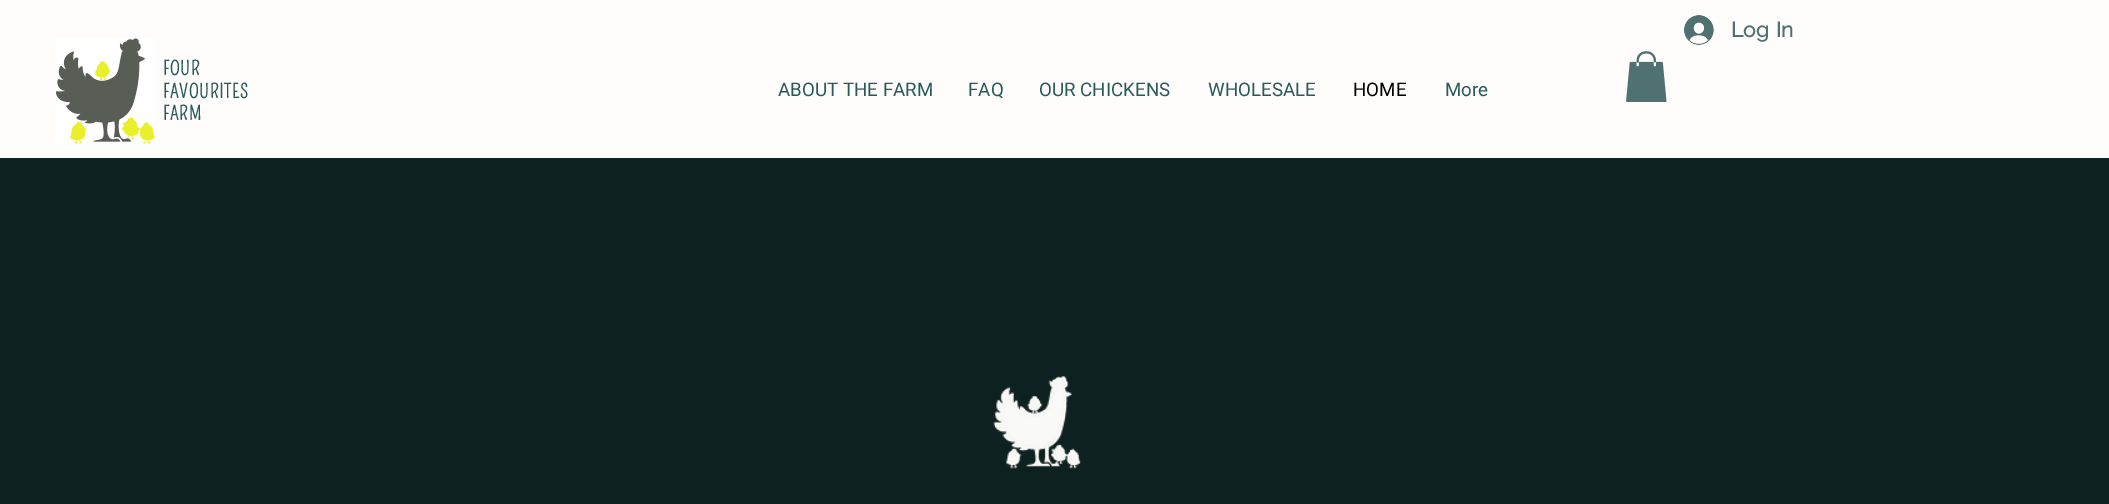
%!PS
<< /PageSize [2109 504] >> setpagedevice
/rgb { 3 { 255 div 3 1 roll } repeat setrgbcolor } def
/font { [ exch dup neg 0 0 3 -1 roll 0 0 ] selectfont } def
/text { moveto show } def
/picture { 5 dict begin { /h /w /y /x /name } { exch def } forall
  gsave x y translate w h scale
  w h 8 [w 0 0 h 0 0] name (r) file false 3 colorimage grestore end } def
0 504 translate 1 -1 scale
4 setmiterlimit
255 253 251 rgb
0 0 2109 504 rectfill
(img_01.rgb) 56 38 99 106 picture
(img_02.rgb) 1684 15 30 30 picture
(img_03.rgb) 1626 51 41 51 picture
13 33 32 rgb
0 158 2109 346 rectfill
(img_04.rgb) 993 376 88 93 picture
/Pompiere-Bold 18.75 font
40 90 91 rgb
163 75 moveto 1 0 (FOUR) ashow
163 98 moveto 1 0 (FAVOURITES) ashow
163 120 moveto 1 0 (FARM) ashow
/Raleway-Bold 21 font
79 113 112 rgb
1731 37 moveto 2 0 32 (Log In) widthshow
/Roboto-Regular 18.75 font
40 90 91 rgb
(ABOUT THE FARM) 778 96 text
(FAQ) 968 96 text
(OUR CHICKENS) 1039 96 text
(WHOLESALE) 1208 96 text
0 0 0 rgb
(HOME) 1353 96 text
40 90 91 rgb
(More) 1445 96 text
showpage
